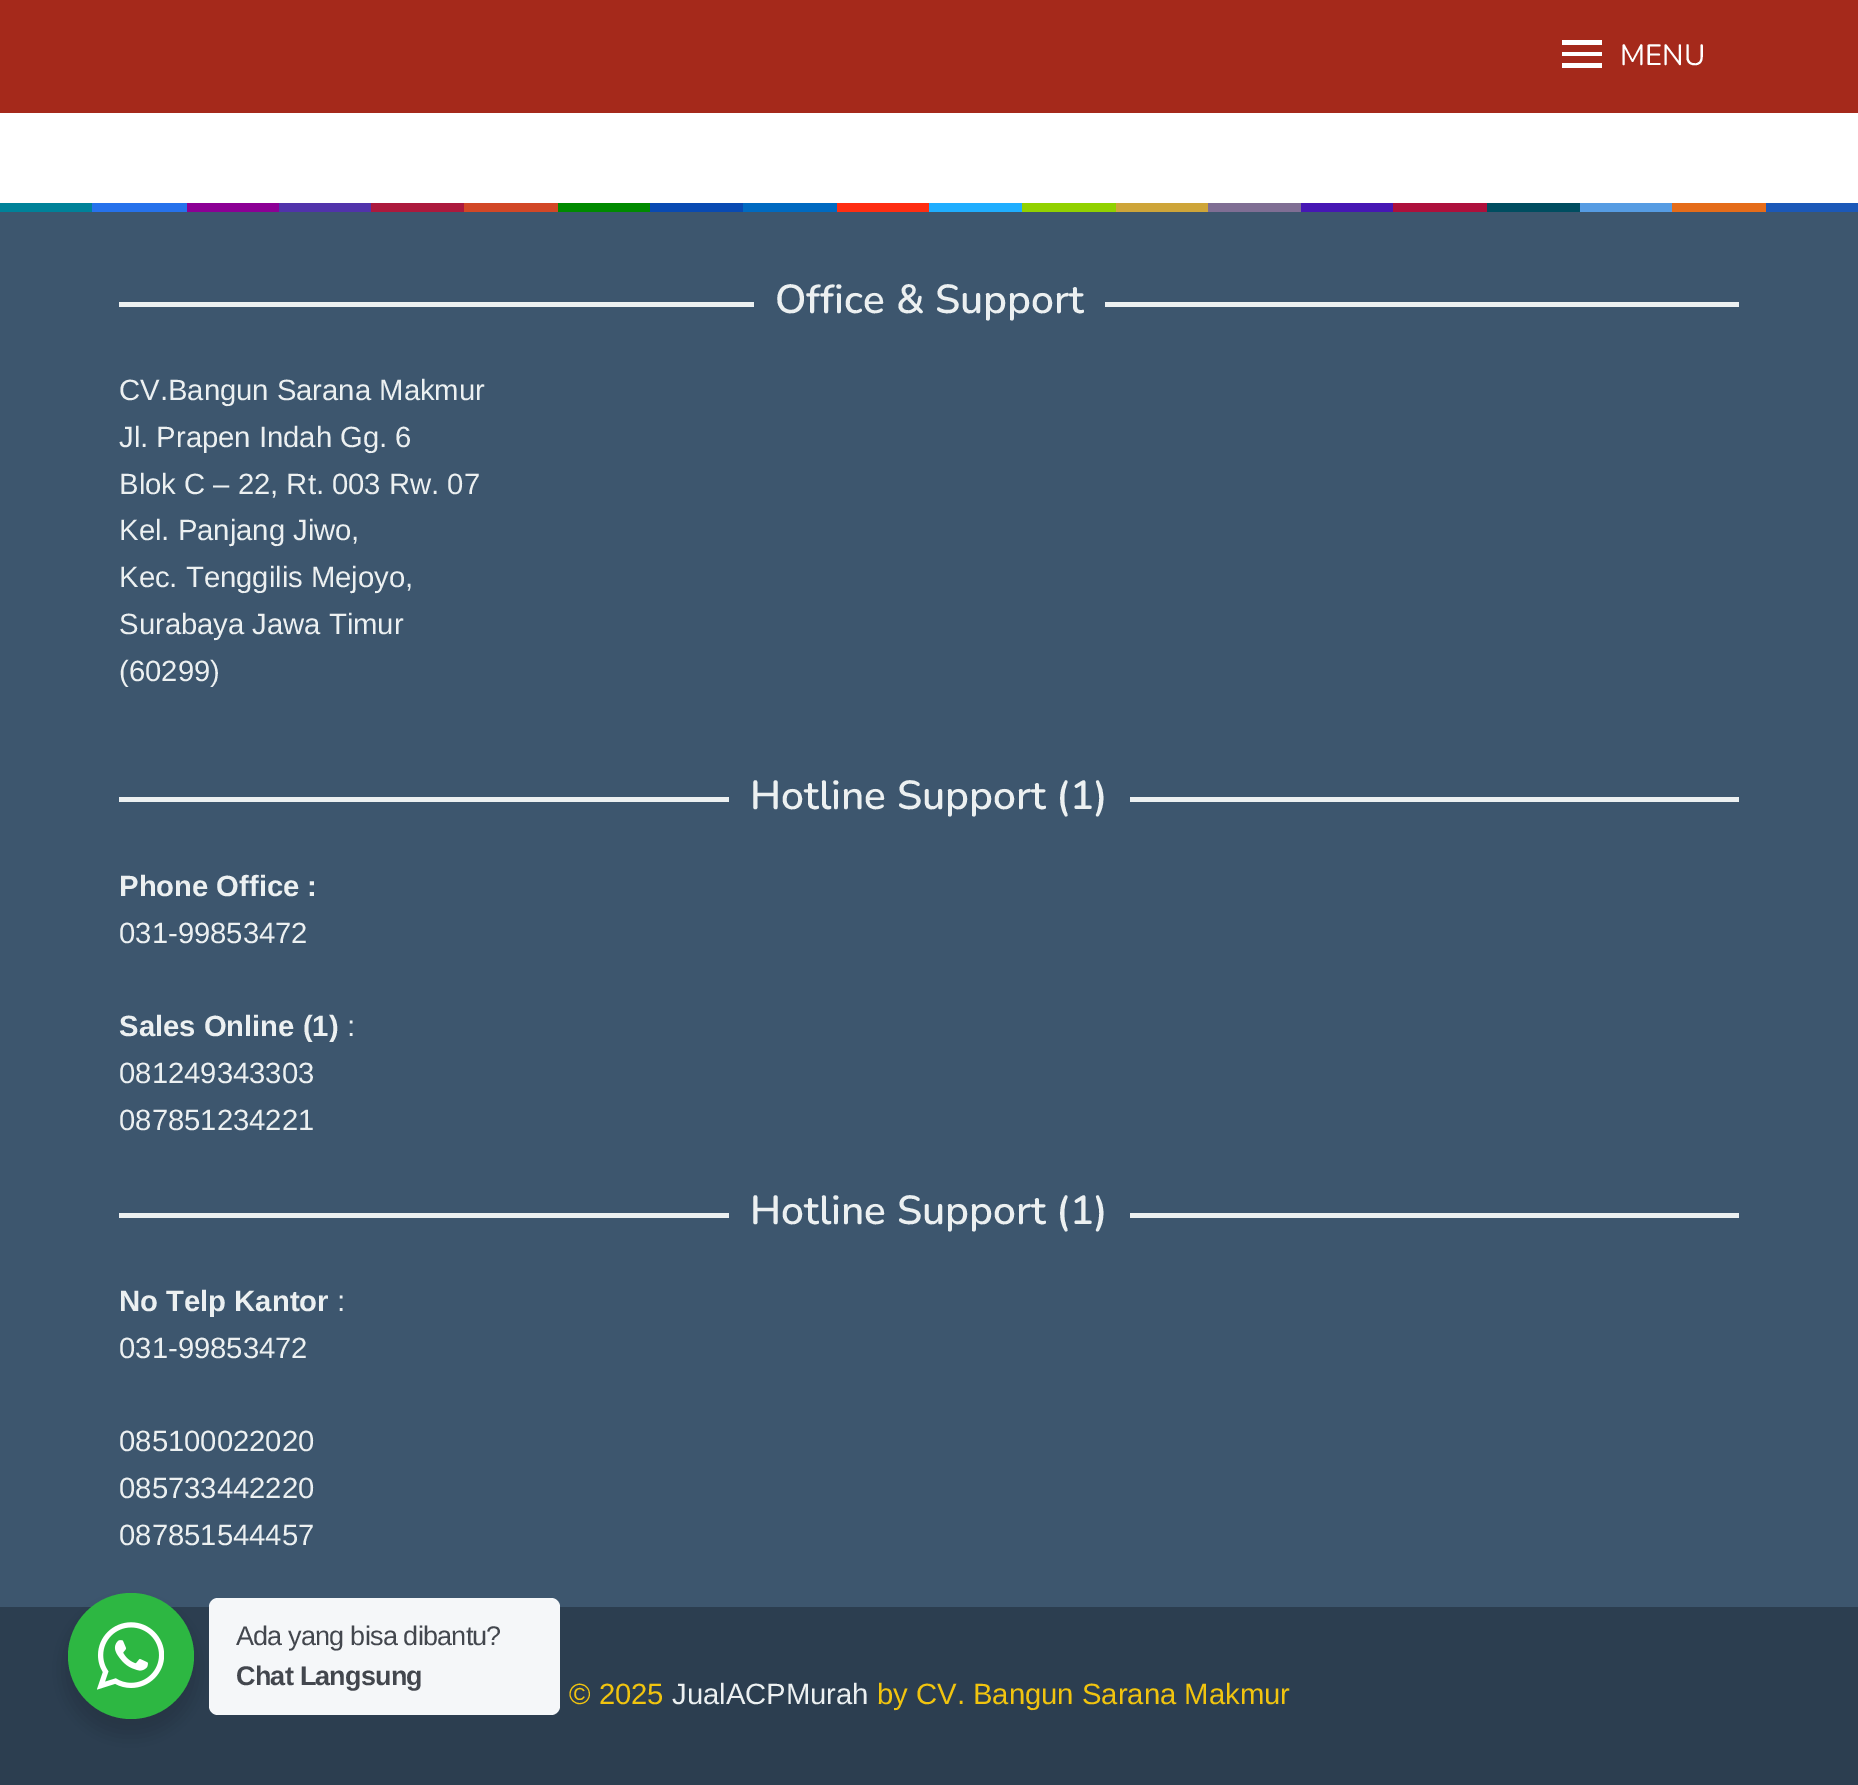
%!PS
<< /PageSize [1858 1785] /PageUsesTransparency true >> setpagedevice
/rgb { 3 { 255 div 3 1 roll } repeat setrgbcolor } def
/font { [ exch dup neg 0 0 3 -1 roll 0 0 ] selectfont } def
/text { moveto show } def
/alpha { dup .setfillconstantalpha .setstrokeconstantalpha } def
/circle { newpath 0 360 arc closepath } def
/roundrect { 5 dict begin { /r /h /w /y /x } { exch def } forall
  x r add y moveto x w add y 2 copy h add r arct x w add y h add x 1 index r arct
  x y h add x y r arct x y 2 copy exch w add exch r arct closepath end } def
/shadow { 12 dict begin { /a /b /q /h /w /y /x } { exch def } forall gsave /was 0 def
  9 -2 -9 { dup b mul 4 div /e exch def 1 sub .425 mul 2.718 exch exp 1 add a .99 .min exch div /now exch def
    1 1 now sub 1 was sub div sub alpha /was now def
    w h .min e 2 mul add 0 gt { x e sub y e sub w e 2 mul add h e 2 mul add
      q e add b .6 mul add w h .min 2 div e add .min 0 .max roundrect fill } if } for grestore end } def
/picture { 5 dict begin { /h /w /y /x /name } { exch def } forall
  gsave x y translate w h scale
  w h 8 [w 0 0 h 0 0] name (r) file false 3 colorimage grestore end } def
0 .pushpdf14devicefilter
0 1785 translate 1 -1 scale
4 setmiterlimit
255 255 255 rgb
0 0 1858 1785 rectfill
165 41 27 rgb
0 0 1858 113 rectfill
255 255 255 rgb
1562 68 moveto 40 0 rlineto 0 -5 rlineto -40 0 rlineto closepath 1562 56 moveto 40 0 rlineto 0 -4 rlineto -40 0 rlineto closepath 1562 40 moveto 0 5 rlineto 40 0 rlineto 0 -5 rlineto closepath fill
0 130 153 rgb
0 203 92 9 rectfill
38 114 236 rgb
92 203 95 9 rectfill
140 0 149 rgb
187 203 92 9 rectfill
81 51 171 rgb
279 203 92 9 rectfill
172 25 61 rgb
371 203 93 9 rectfill
210 71 38 rgb
464 203 94 9 rectfill
0 138 0 rgb
558 203 92 9 rectfill
9 74 178 rgb
650 203 93 9 rectfill
0 106 193 rgb
743 203 94 9 rectfill
255 46 18 rgb
837 203 92 9 rectfill
31 174 255 rgb
929 203 93 9 rectfill
145 209 0 rgb
1022 203 94 9 rectfill
206 165 57 rgb
1116 203 92 9 rectfill
127 110 148 rgb
1208 203 93 9 rectfill
70 23 180 rgb
1301 203 92 9 rectfill
173 16 60 rgb
1393 203 94 9 rectfill
0 77 96 rgb
1487 203 93 9 rectfill
86 156 227 rgb
1580 203 92 9 rectfill
229 108 25 rgb
1672 203 94 9 rectfill
27 88 184 rgb
1766 203 92 9 rectfill
61 86 110 rgb
0 212 1858 1395 rectfill
236 240 241 rgb
119 302 635 5 rectfill
1105 302 634 5 rectfill
119 797 610 5 rectfill
1130 797 609 5 rectfill
119 1213 610 5 rectfill
1130 1213 609 5 rectfill
44 62 80 rgb
0 1607 1858 178 rectfill
0 0 0 rgb
63 1602 135 135 67.5 9 0.14 shadow
45 183 66 rgb
131 1656 63 circle fill
(img_01.rgb) 97 1622 67 68 picture
245 247 249 rgb
209 1598 351 117 9 roundrect fill
/Nunito-Regular 29.25 font
255 255 255 rgb
(MENU) 1620 65 text
/Nunito-SemiBold 40.5 font
236 240 241 rgb
(Office & Support) 775 313 text
/LiberationSans-Regular 29.25 font
(CV.Bangun Sarana Makmur) 119 400 text
(Jl. Prapen Indah Gg. 6) 119 447 text
(Blok C – 22, Rt. 003 Rw. 07) 119 494 text
(Kel. Panjang Jiwo,) 119 540 text
(Kec. Tenggilis Mejoyo,) 119 587 text
(Surabaya Jawa Timur) 119 634 text
(\(60299\)) 119 681 text
/Nunito-SemiBold 40.5 font
(Hotline Support \(1\)) 750 809 text
/LiberationSans-Bold 29.25 font
(Phone Office :) 119 896 text
/LiberationSans-Regular 29.25 font
(031-99853472) 119 943 text
/LiberationSans-Bold 29.25 font
(Sales Online \(1\)) 119 1036 text
/LiberationSans-Regular 29.25 font
(:) 347 1036 text
(081249343303) 119 1083 text
(087851234221) 119 1130 text
/Nunito-SemiBold 40.5 font
(Hotline Support \(1\)) 750 1224 text
/LiberationSans-Bold 29.25 font
(No Telp Kantor) 119 1311 text
/LiberationSans-Regular 29.25 font
(:) 337 1311 text
(031-99853472) 119 1358 text
(085100022020) 119 1451 text
(085733442220) 119 1498 text
(087851544457) 119 1545 text
241 196 15 rgb
(© 2025) 569 1704 text
236 240 241 rgb
(JualACPMurah) 672 1704 text
241 196 15 rgb
(by CV. Bangun Sarana Makmur) 877 1704 text
/LiberationSans-Regular 27 font
67 71 78 rgb
236 1645 moveto -0.8 0 (Ada yang bisa dibantu?) ashow
/LiberationSans-Bold 27 font
236 1685 moveto -0.8 0 (Chat Langsung) ashow
.poppdf14devicefilter showpage
